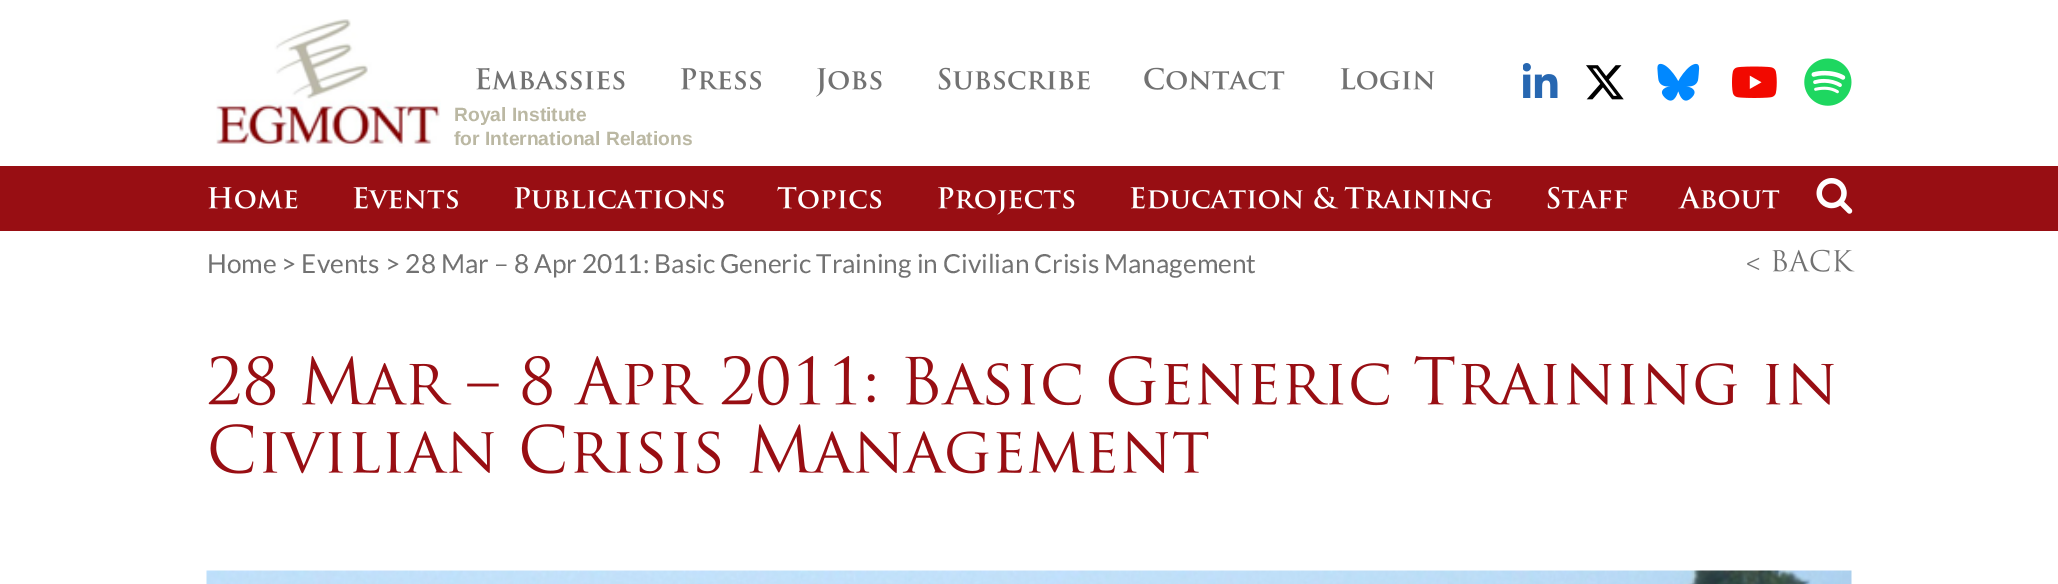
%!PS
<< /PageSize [2058 584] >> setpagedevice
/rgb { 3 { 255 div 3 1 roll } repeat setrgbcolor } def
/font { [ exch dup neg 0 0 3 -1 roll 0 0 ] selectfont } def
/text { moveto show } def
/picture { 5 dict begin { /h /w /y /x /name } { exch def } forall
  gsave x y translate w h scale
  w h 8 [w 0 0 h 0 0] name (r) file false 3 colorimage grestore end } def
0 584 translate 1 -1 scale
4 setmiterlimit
255 255 255 rgb
0 0 2058 584 rectfill
(img_01.rgb) 476 68 149 22 picture
(img_02.rgb) 680 68 82 22 picture
(img_03.rgb) 816 68 66 29 picture
(img_04.rgb) 938 67 152 23 picture
(img_05.rgb) 1144 67 141 23 picture
(img_06.rgb) 1340 68 95 22 picture
(img_07.rgb) 1523 63 35 35 picture
(img_08.rgb) 1586 65 38 35 picture
(img_09.rgb) 1657 63 43 38 picture
(img_10.rgb) 1732 66 45 32 picture
(img_11.rgb) 1804 58 48 48 picture
152 14 19 rgb
0 166 2058 65 rectfill
(img_12.rgb) 208 187 90 22 picture
(img_13.rgb) 353 187 105 22 picture
(img_14.rgb) 514 187 210 22 picture
(img_15.rgb) 777 186 105 23 picture
(img_16.rgb) 938 187 137 28 picture
(img_17.rgb) 1130 186 362 23 picture
(img_18.rgb) 1547 186 80 23 picture
(img_19.rgb) 1678 186 102 23 picture
(img_20.rgb) 1816 178 37 36 picture
(img_21.rgb) 216 19 225 128 picture
(img_22.rgb) 1747 249 108 23 picture
(img_23.rgb) 208 355 1626 51 picture
(img_24.rgb) 210 424 999 50 picture
(img_25.rgb) 206 570 1646 14 picture
/LiberationSans-Bold 19.25 font
187 184 163 rgb
(Royal Institute) 454 121 text
(for International Relations) 454 145 text
/Lato-Regular 26.25 font
114 114 114 rgb
(Home) 207 273 text
(> Events) 281 273 text
(> 28 Mar – 8 Apr 2011: Basic Generic Training in Civilian Crisis Management) 385 273 text
showpage
